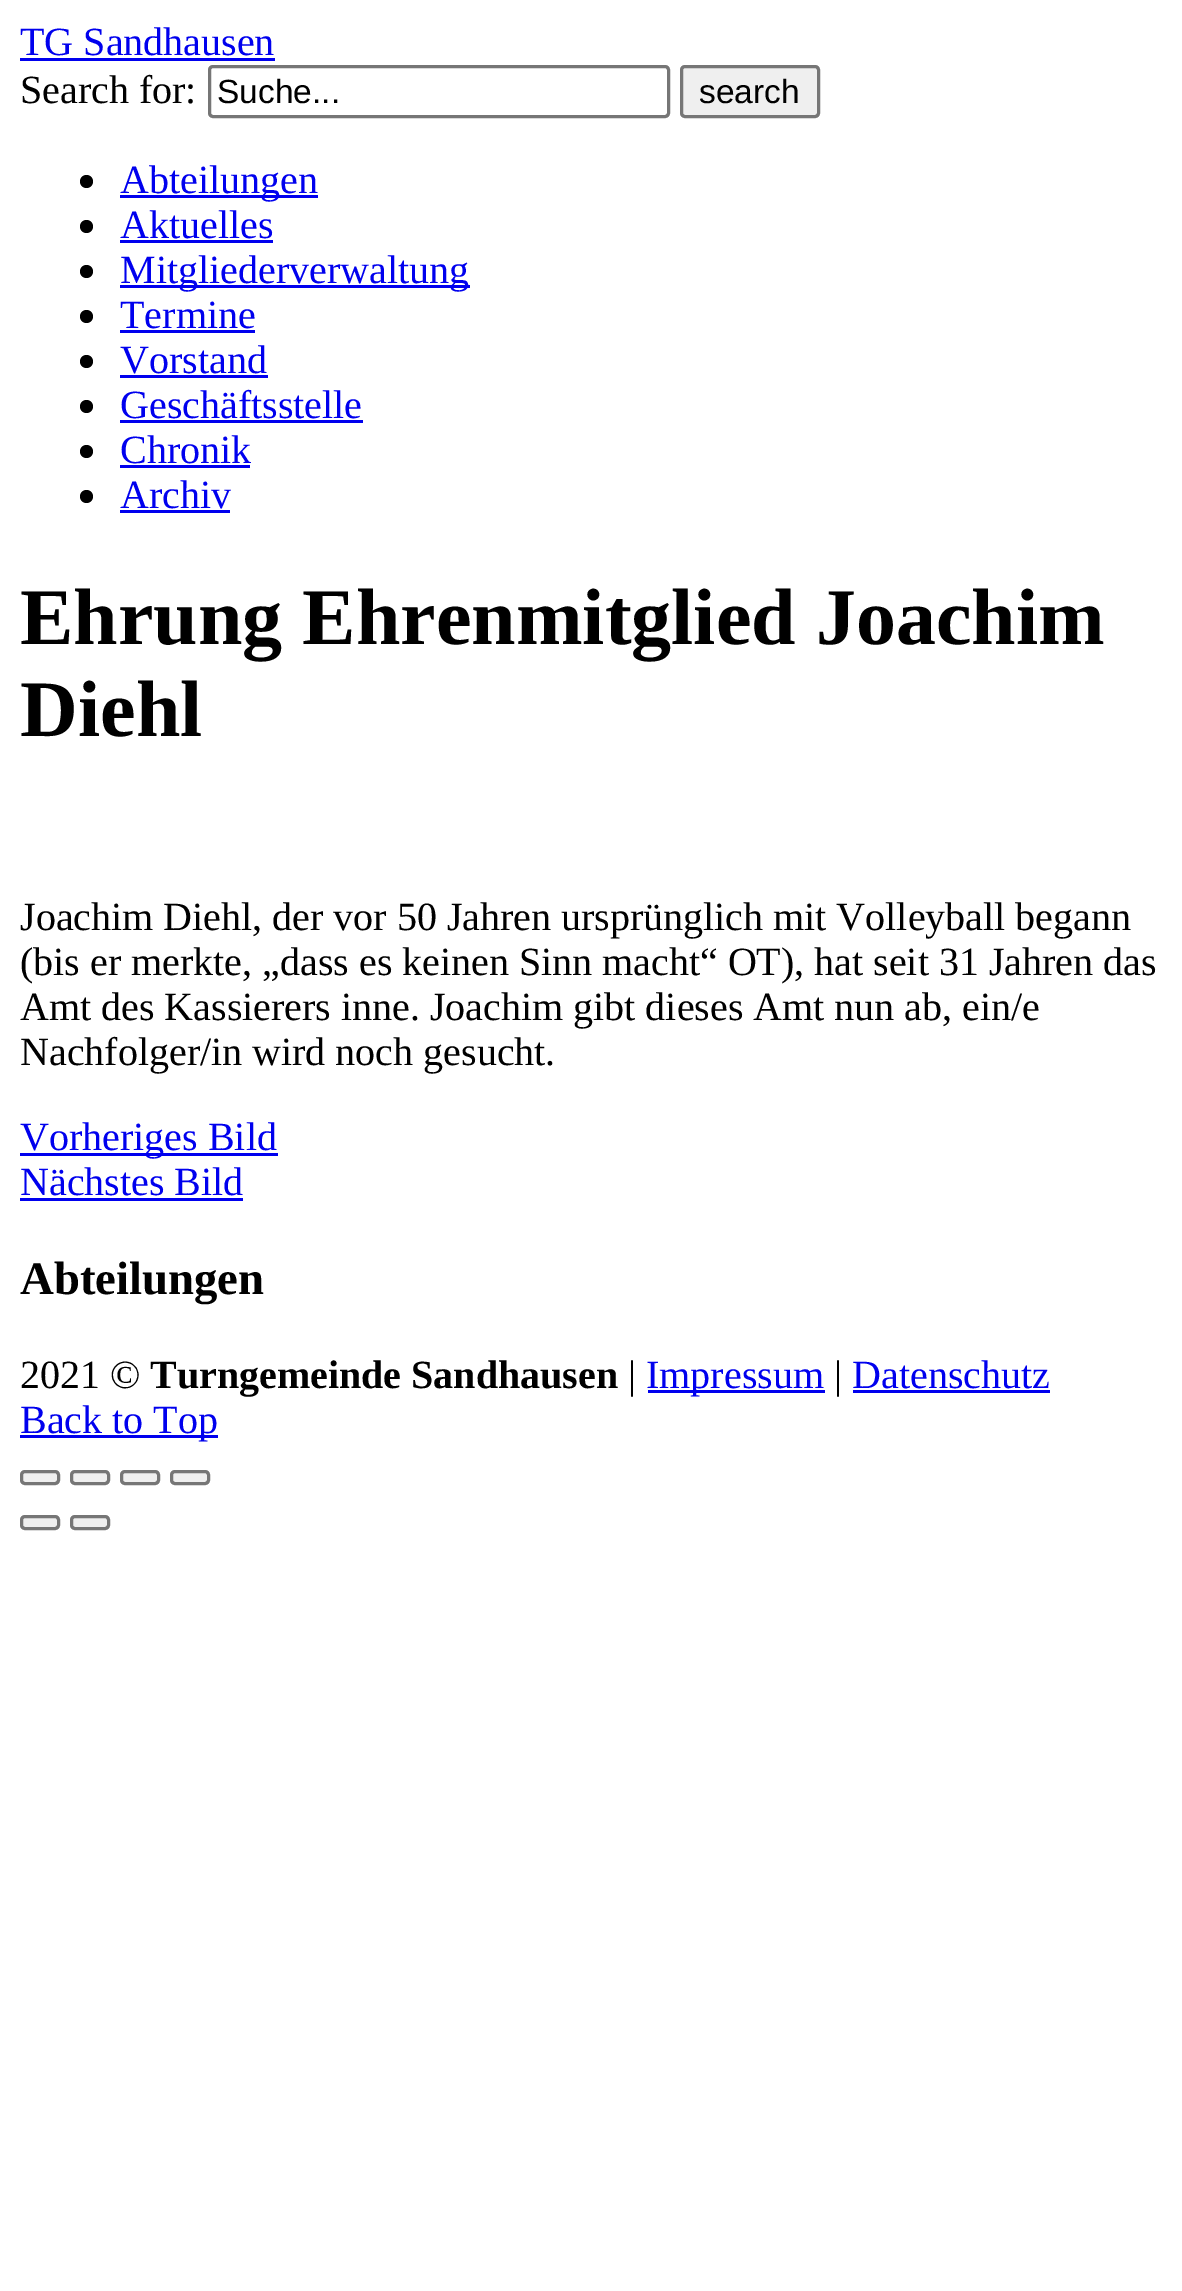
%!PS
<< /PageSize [1182 2291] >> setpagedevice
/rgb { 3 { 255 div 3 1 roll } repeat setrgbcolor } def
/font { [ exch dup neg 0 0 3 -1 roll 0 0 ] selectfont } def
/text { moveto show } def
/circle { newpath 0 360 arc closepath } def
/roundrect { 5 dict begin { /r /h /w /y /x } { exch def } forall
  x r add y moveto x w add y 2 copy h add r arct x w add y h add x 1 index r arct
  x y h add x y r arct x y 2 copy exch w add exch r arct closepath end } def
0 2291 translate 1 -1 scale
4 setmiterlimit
255 255 255 rgb
0 0 1182 2291 rectfill
0 0 238 rgb
20 58 255 3 rectfill
118 118 118 rgb
3 setlinewidth
209.5 66.5 459 50 3.5 roundrect stroke
239 239 239 rgb
681.5 66.5 137 50 3.5 roundrect gsave fill grestore
118 118 118 rgb
stroke
0 0 0 rgb
86.5 181.5 6.5 circle fill
0 0 238 rgb
120 195 198 3 rectfill
0 0 0 rgb
86.5 226.5 6.5 circle fill
0 0 238 rgb
120 240 153 3 rectfill
0 0 0 rgb
86.5 271.5 6.5 circle fill
0 0 238 rgb
120 285 350 3 rectfill
0 0 0 rgb
86.5 316.5 6.5 circle fill
0 0 238 rgb
120 330 135 3 rectfill
0 0 0 rgb
86.5 361.5 6.5 circle fill
0 0 238 rgb
120 375 148 3 rectfill
0 0 0 rgb
86.5 406.5 6.5 circle fill
0 0 238 rgb
120 420 243 3 rectfill
0 0 0 rgb
86.5 451.5 6.5 circle fill
0 0 238 rgb
120 465 130 3 rectfill
0 0 0 rgb
86.5 496.5 6.5 circle fill
0 0 238 rgb
120 510 110 3 rectfill
20 1153 258 3 rectfill
20 1198 223 3 rectfill
648 1390 177 3 rectfill
853 1390 197 3 rectfill
20 1435 198 3 rectfill
239 239 239 rgb
21.5 1471.5 37 12 3.5 roundrect gsave fill grestore
118 118 118 rgb
stroke
239 239 239 rgb
71.5 1471.5 37 12 3.5 roundrect gsave fill grestore
118 118 118 rgb
stroke
239 239 239 rgb
121.5 1471.5 37 12 3.5 roundrect gsave fill grestore
118 118 118 rgb
stroke
239 239 239 rgb
171.5 1471.5 37 12 3.5 roundrect gsave fill grestore
118 118 118 rgb
stroke
239 239 239 rgb
21.5 1516.5 37 12 3.5 roundrect gsave fill grestore
118 118 118 rgb
stroke
239 239 239 rgb
71.5 1516.5 37 12 3.5 roundrect gsave fill grestore
118 118 118 rgb
stroke
/LiberationSerif-Regular 40 font
0 0 238 rgb
(TG Sandhausen) 20 55 text
0 0 0 rgb
(Search for:) 20 103 text
/LiberationSans-Regular 33.5 font
(Suche...) 217 103 text
(search) 699 103 text
/LiberationSerif-Regular 40 font
0 0 238 rgb
(Abteilungen) 120 193 text
(Aktuelles) 120 238 text
(Mitgliederverwaltung) 120 283 text
(Termine) 120 328 text
(Vorstand) 120 373 text
(Geschäftsstelle) 120 418 text
(Chronik) 120 463 text
(Archiv) 120 508 text
/LiberationSerif-Bold 80 font
0 0 0 rgb
(Ehrung Ehrenmitglied Joachim) 20 644 text
(Diehl) 20 736 text
/LiberationSerif-Regular 40 font
(Joachim Diehl, der vor 50 Jahren ursprünglich mit Volleyball begann) 20 930 text
(\(bis er merkte, „dass es keinen Sinn macht“ OT\), hat seit 31 Jahren das) 20 975 text
(Amt des Kassierers inne. Joachim gibt dieses Amt nun ab, ein/e) 20 1020 text
(Nachfolger/in wird noch gesucht.) 20 1065 text
0 0 238 rgb
(Vorheriges Bild) 20 1150 text
(Nächstes Bild) 20 1195 text
/LiberationSerif-Bold 46.75 font
0 0 0 rgb
(Abteilungen) 20 1294 text
/LiberationSerif-Regular 40 font
(2021 ©) 20 1388 text
/LiberationSerif-Bold 40 font
(Turngemeinde Sandhausen) 150 1388 text
/LiberationSerif-Regular 40 font
(|) 628 1388 text
0 0 238 rgb
(Impressum) 646 1388 text
0 0 0 rgb
(|) 834 1388 text
0 0 238 rgb
(Datenschutz) 852 1388 text
(Back to Top) 20 1433 text
showpage
